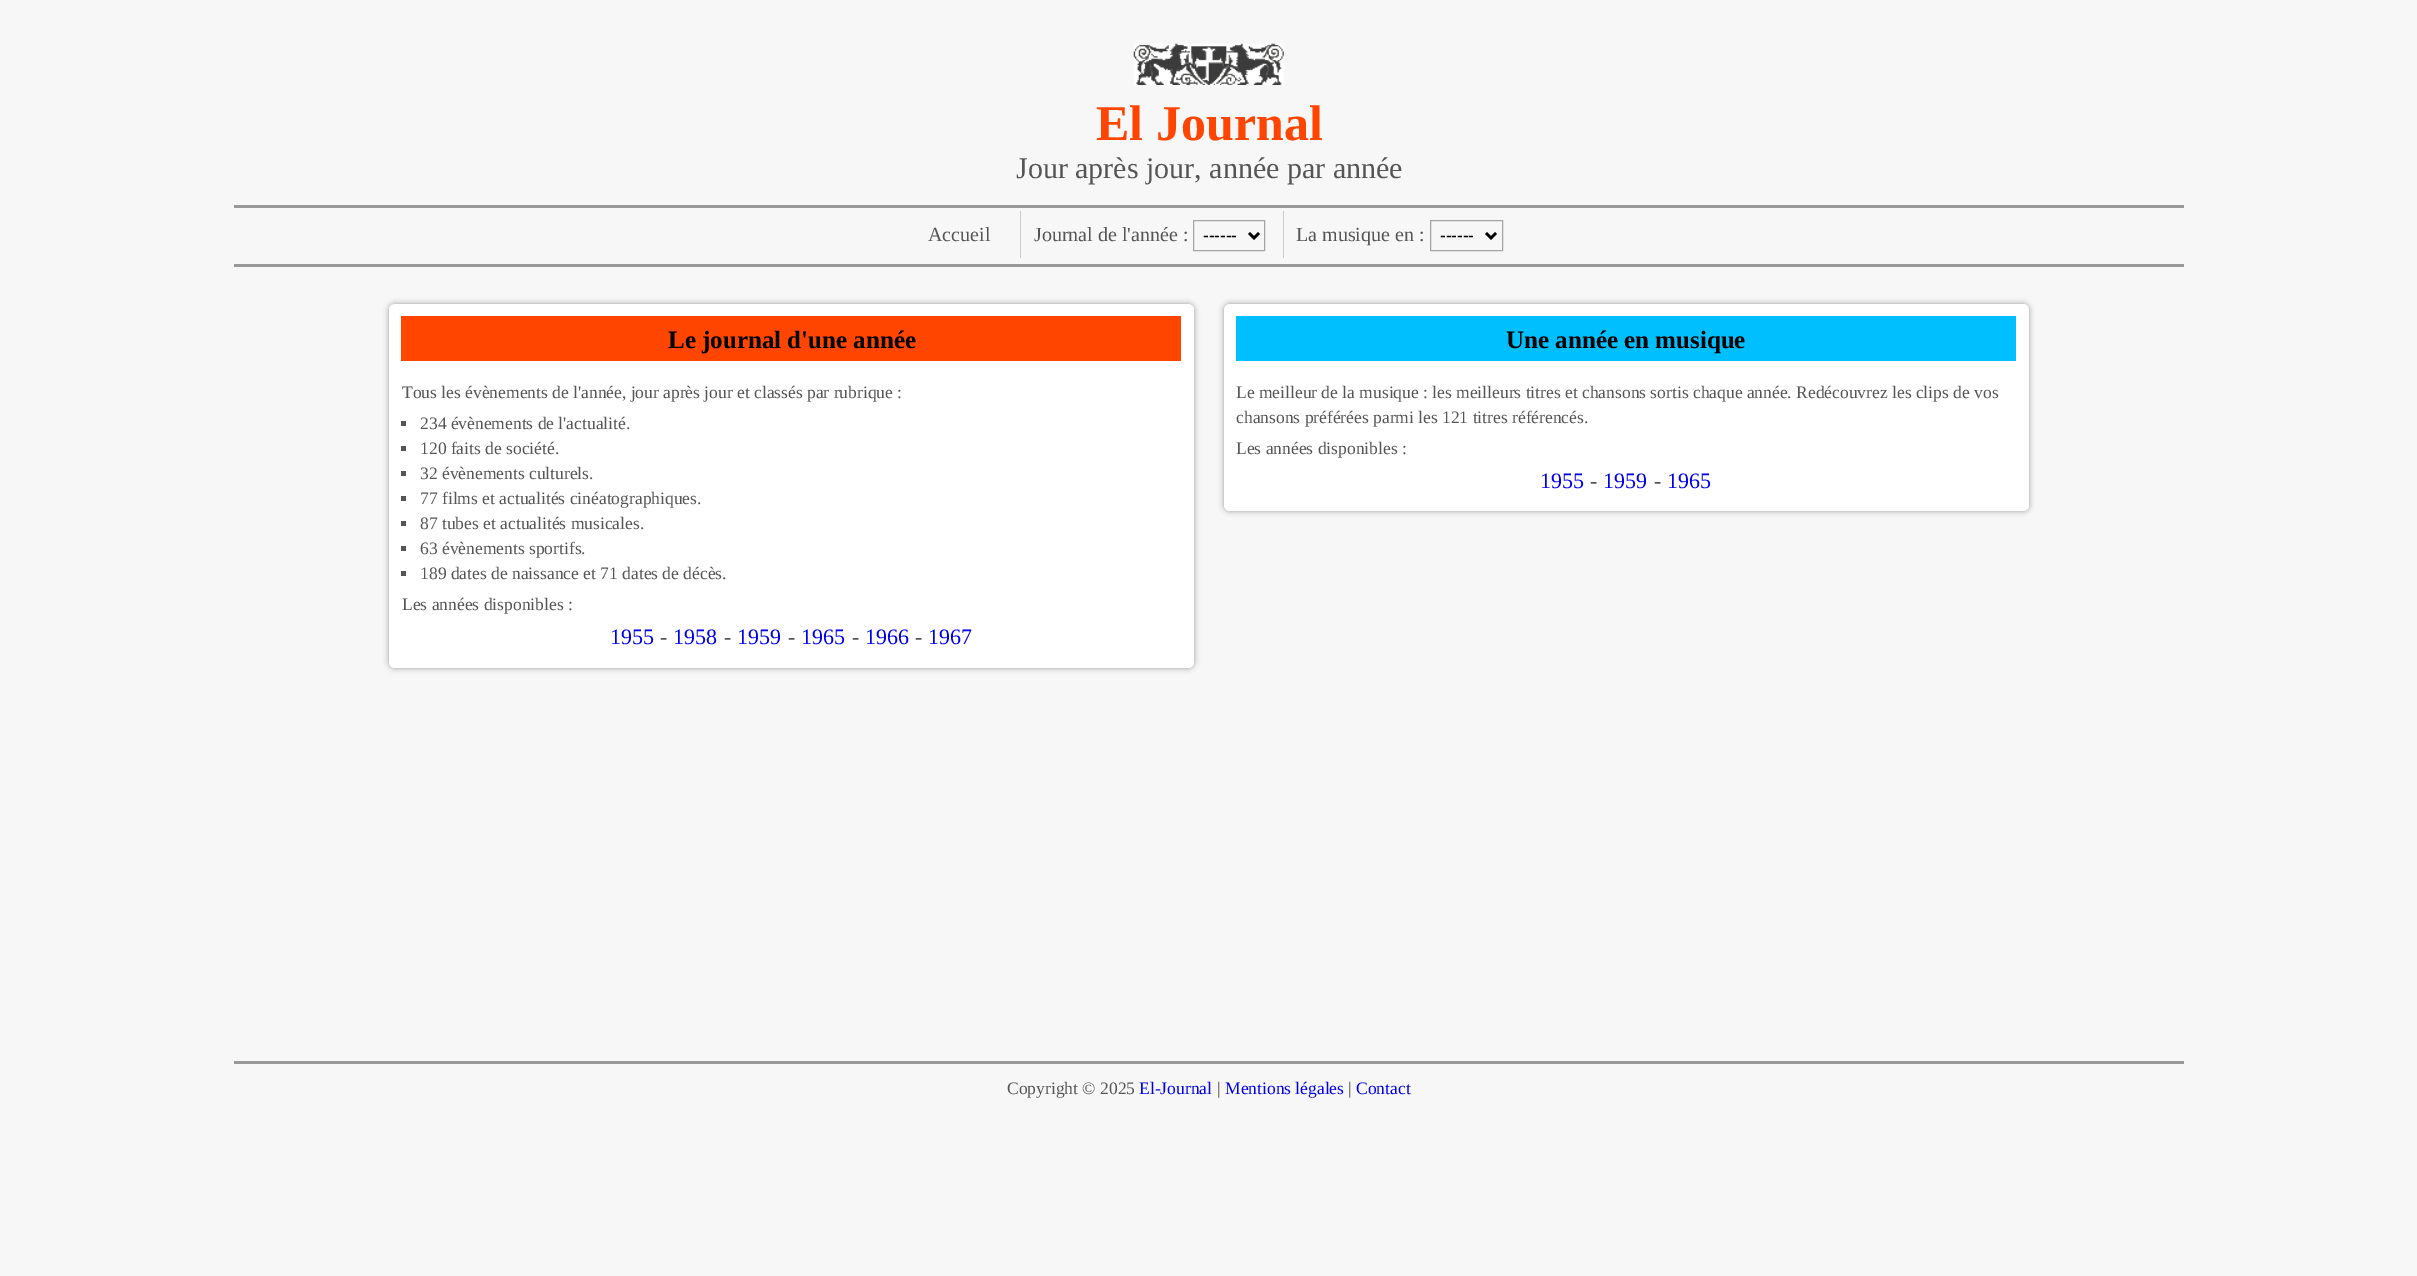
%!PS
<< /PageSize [2417 1276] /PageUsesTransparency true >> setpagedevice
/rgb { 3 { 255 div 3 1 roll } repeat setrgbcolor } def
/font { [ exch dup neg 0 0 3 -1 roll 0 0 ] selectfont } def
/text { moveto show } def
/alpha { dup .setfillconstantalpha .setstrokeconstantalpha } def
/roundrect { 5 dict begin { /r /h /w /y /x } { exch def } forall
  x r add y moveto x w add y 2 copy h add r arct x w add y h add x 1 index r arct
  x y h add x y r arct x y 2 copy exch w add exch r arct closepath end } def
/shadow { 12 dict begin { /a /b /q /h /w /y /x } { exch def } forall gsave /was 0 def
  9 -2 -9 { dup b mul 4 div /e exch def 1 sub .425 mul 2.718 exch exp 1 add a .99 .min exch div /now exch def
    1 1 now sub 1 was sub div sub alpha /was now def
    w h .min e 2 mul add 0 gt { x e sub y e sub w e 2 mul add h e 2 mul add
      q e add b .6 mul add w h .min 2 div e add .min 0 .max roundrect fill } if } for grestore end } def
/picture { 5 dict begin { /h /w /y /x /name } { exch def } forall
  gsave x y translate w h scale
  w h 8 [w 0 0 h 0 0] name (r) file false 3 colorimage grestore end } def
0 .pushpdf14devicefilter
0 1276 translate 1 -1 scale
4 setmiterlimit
247 247 247 rgb
0 0 2417 1276 rectfill
(img_01.rgb) 1133 43 151 42 picture
153 153 153 rgb
234 205 1950 3 rectfill
234 264 1950 3 rectfill
204 204 204 rgb
1020 211 1 47 rectfill
165 165 165 rgb
1193.5 220.5 71 30 rectstroke
0 0 0 rgb
2.5 setlinewidth
1249 233 moveto 5 5 rlineto 5 -5 rlineto stroke
204 204 204 rgb
1283 211 1 47 rectfill
165 165 165 rgb
1 setlinewidth
1430.5 220.5 72 30 rectstroke
0 0 0 rgb
2.5 setlinewidth
1486 233 moveto 5 5 rlineto 5 -5 rlineto stroke
153 153 153 rgb
389 304 805 364 6 3 1 shadow
255 255 255 rgb
389 304 805 364 6 roundrect fill
255 69 0 rgb
401 316 780 45 rectfill
85 85 85 rgb
401 421 5 5 rectfill
401 446 5 5 rectfill
401 471 5 5 rectfill
401 496 5 5 rectfill
401 521 5 5 rectfill
401 546 5 5 rectfill
401 571 5 5 rectfill
153 153 153 rgb
1224 304 805 207 6 3 1 shadow
255 255 255 rgb
1224 304 805 207 6 roundrect fill
0 191 255 rgb
1236 316 780 45 rectfill
153 153 153 rgb
234 1061 1950 3 rectfill
/LiberationSerif-Bold 50 font
255 69 0 rgb
(El Journal) 1096 140 text
/LiberationSerif-Regular 30 font
85 85 85 rgb
(Jour après jour, année par année) 1016 178 text
/LiberationSerif-Regular 20 font
(Accueil) 928 241 text
(Journal de l'année :) 1034 241 text
/LiberationSans-Regular 17 font
0 0 0 rgb
(------) 1203 241 text
/LiberationSerif-Regular 20 font
85 85 85 rgb
(La musique en :) 1296 241 text
/LiberationSans-Regular 17 font
0 0 0 rgb
(------) 1440 241 text
/LiberationSerif-Bold 25 font
(Le journal d'une année) 668 348 text
/LiberationSerif-Regular 17.5 font
85 85 85 rgb
(Tous les évènements de l'année, jour après jour et classés par rubrique :) 402 398 text
(234 évènements de l'actualité.) 420 429 text
(120 faits de société.) 420 454 text
(32 évènements culturels.) 420 479 text
(77 films et actualités cinéatographiques.) 420 504 text
(87 tubes et actualités musicales.) 420 529 text
(63 évènements sportifs.) 420 554 text
(189 dates de naissance et 71 dates de décès.) 420 579 text
(Les années disponibles :) 402 610 text
/LiberationSerif-Regular 22 font
0 0 238 rgb
(1955) 610 644 text
85 85 85 rgb
(-) 660 644 text
0 0 238 rgb
(1958) 673 644 text
85 85 85 rgb
(-) 724 644 text
0 0 238 rgb
(1959) 737 644 text
85 85 85 rgb
(-) 788 644 text
0 0 238 rgb
(1965) 801 644 text
85 85 85 rgb
(-) 852 644 text
0 0 238 rgb
(1966) 865 644 text
85 85 85 rgb
(-) 915 644 text
0 0 238 rgb
(1967) 928 644 text
/LiberationSerif-Bold 25 font
0 0 0 rgb
(Une année en musique) 1506 348 text
/LiberationSerif-Regular 17.5 font
85 85 85 rgb
(Le meilleur de la musique : les meilleurs titres et chansons sortis chaque année. Redécouvrez les clips de vos) 1236 398 text
(chansons préférées parmi les 121 titres référencés.) 1236 423 text
(Les années disponibles :) 1236 454 text
/LiberationSerif-Regular 22 font
0 0 238 rgb
(1955) 1540 488 text
85 85 85 rgb
(-) 1590 488 text
0 0 238 rgb
(1959) 1603 488 text
85 85 85 rgb
(-) 1654 488 text
0 0 238 rgb
(1965) 1667 488 text
/LiberationSerif-Regular 17.5 font
85 85 85 rgb
(Copyright © 2025) 1007 1094 text
0 0 238 rgb
(El-Journal) 1139 1094 text
85 85 85 rgb
(|) 1217 1094 text
0 0 238 rgb
(Mentions légales) 1225 1094 text
85 85 85 rgb
(|) 1348 1094 text
0 0 238 rgb
(Contact) 1356 1094 text
.poppdf14devicefilter showpage
